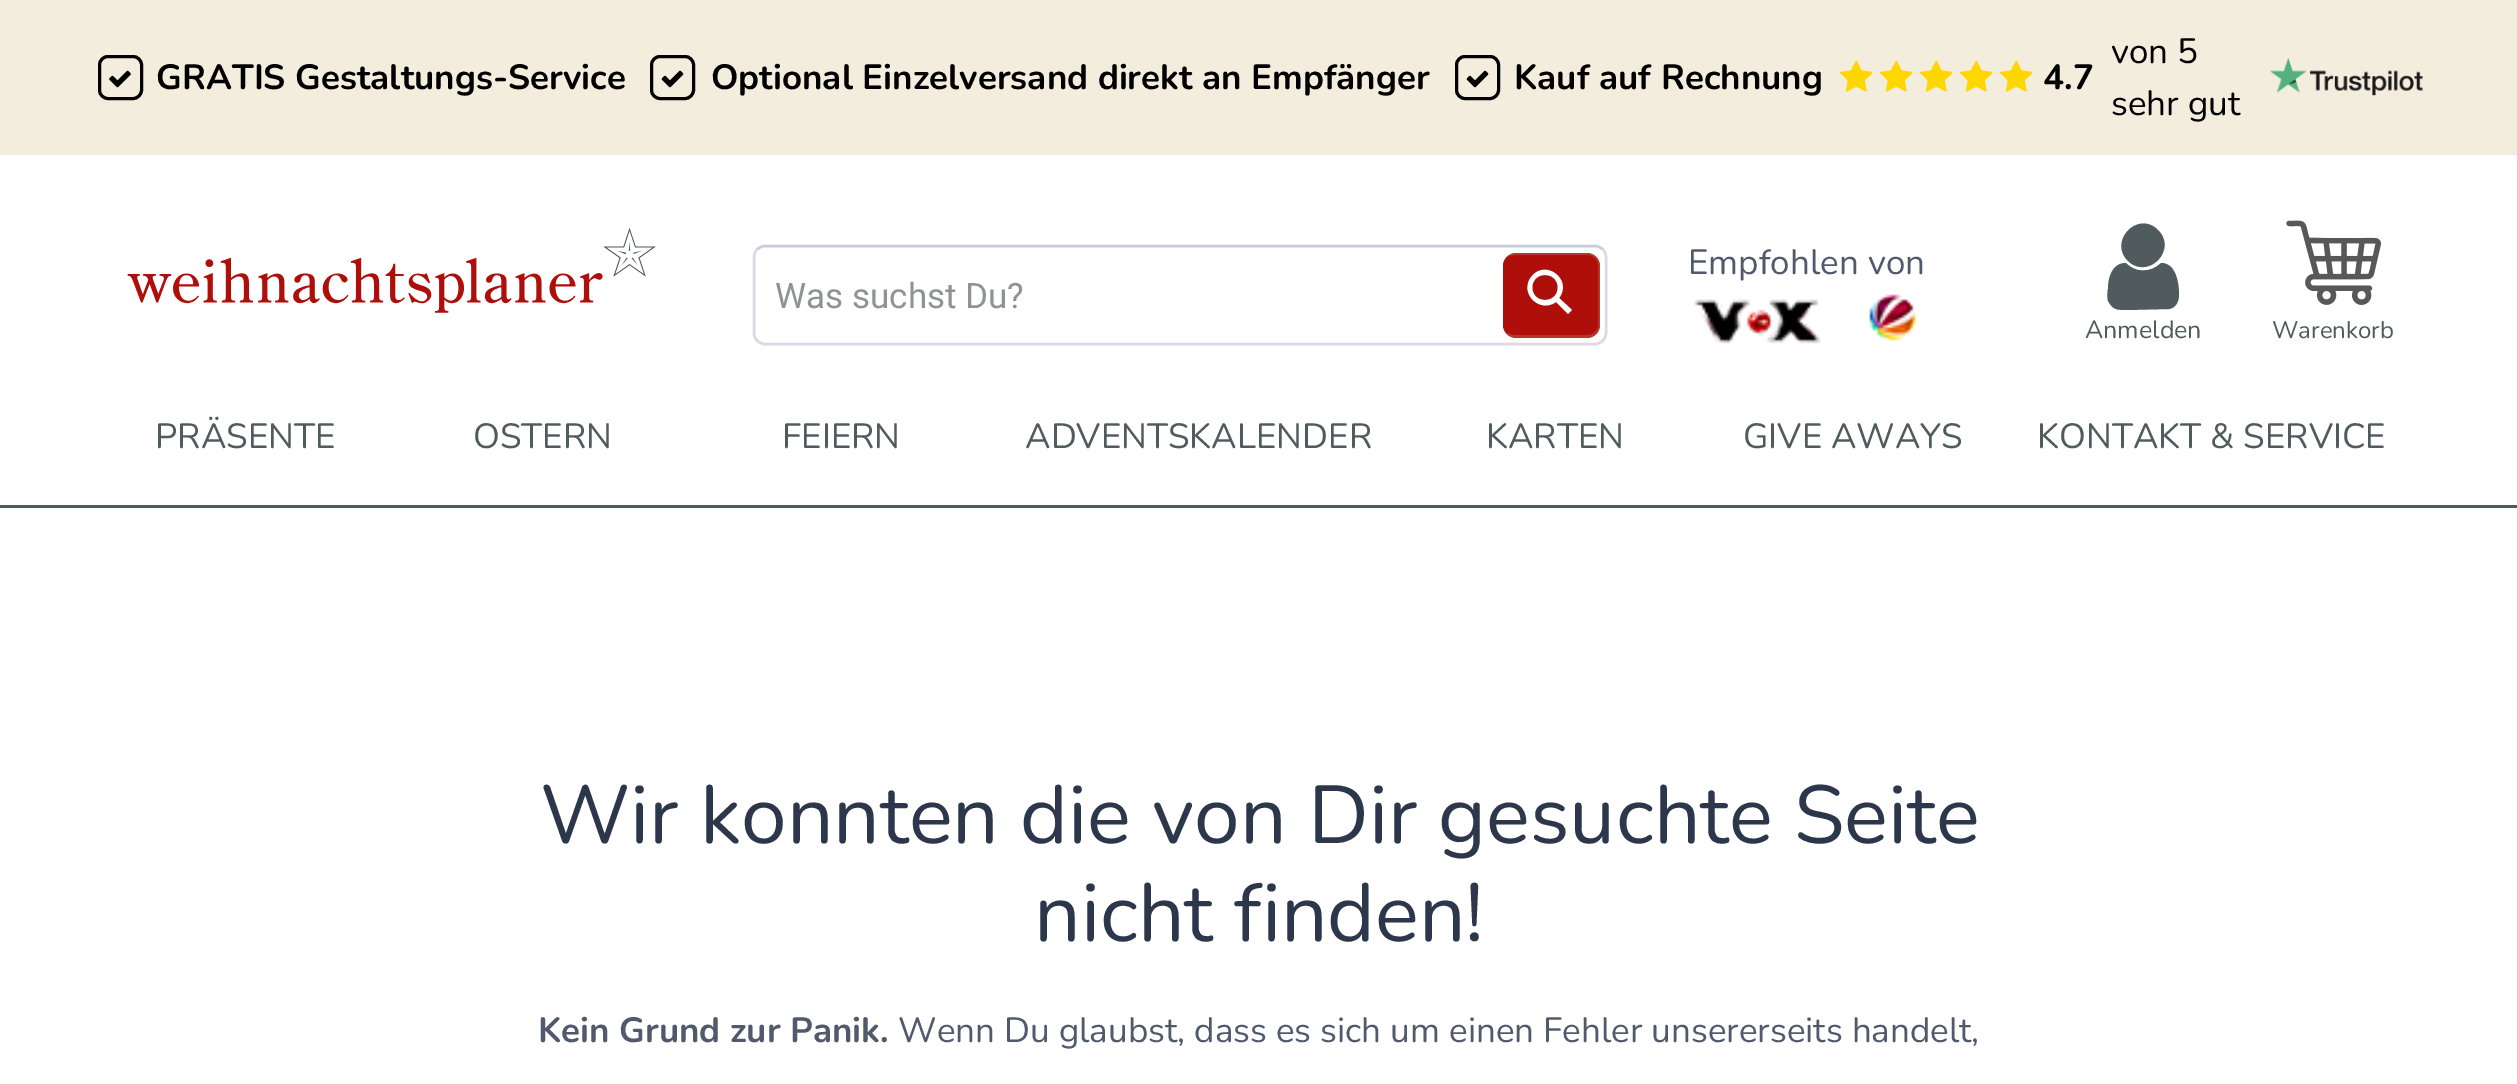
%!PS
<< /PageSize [2517 1084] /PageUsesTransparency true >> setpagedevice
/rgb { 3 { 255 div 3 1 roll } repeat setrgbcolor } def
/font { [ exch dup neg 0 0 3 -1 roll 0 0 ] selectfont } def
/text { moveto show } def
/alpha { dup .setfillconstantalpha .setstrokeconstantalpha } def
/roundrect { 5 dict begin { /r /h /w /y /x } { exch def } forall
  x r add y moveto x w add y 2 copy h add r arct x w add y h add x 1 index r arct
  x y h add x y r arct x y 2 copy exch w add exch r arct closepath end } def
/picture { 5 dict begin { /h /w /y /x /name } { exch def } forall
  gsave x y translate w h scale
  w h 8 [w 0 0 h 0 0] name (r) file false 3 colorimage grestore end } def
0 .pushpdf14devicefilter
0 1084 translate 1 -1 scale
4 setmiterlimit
255 255 255 rgb
0 0 2517 1084 rectfill
80 91 94 rgb
0 505 2517 3 rectfill
243 237 221 rgb
0 0 2517 155 rectfill
0 0 0 rgb
3 setlinewidth
99.5 56.5 42 42 8.5 roundrect stroke
(img_01.rgb) 109 70 22 18 picture
651.5 56.5 42 42 8.5 roundrect stroke
(img_02.rgb) 661 70 23 18 picture
1456.5 56.5 42 42 8.5 roundrect stroke
(img_02.rgb) 1466 70 23 18 picture
(img_03.rgb) 1840 60 33 32 picture
(img_03.rgb) 1880 60 33 32 picture
(img_03.rgb) 1920 60 33 32 picture
(img_03.rgb) 1960 60 33 32 picture
(img_03.rgb) 2000 60 33 32 picture
(img_04.rgb) 2270 57 153 39 picture
(img_05.rgb) 127 228 529 85 picture
203 203 219 rgb
2.5 setlinewidth
757 249.5 moveto 2 -2 5 -3.5 8 -3.5 rcurveto 830 0 rlineto 3 0 6 1.5 8 3.5 rcurveto stroke
218 218 229 rgb
1603 249.5 moveto 2 2 3 5 3 8 rcurveto 0 75 rlineto 0 3 -1 6 -3 8 rcurveto -2 2 -5 3.5 -8 3.5 rcurveto -830 0 rlineto -3 0 -6 -1.5 -8 -3.5 rcurveto -2 -2 -3 -5 -3 -8 rcurveto 0 -75 rlineto 0 -3 1 -6 3 -8 rcurveto stroke
174 15 10 rgb
1503 253 97 85 13 roundrect fill
0.15 alpha
255 255 255 rgb
1515 252 moveto 73 0 rlineto 6 0 12 6 12 13 rcurveto 0 60 rlineto 0 7 -6 13 -12 13 rcurveto -73 0 rlineto -7 0 -13 -6 -13 -13 rcurveto 0 -60 rlineto 0 -7 6 -13 13 -13 rcurveto closepath 1515 255 moveto 73 0 rlineto 5 0 10 4 10 10 rcurveto 0 60 rlineto 0 6 -5 10 -10 10 rcurveto -73 0 rlineto -7 0 -13 -4 -13 -10 rcurveto 0 -60 rlineto 0 -6 6 -10 13 -10 rcurveto closepath eofill
1 alpha
1532 276 moveto 14 -17 41 4 27 22 rcurveto 13 12 rlineto -4 4 rlineto -12 -12 rlineto -17 12 -38 -10 -24 -26 rcurveto closepath 1545 275 moveto -17 0 -17 25 0 25 rcurveto 17 0 17 -25 0 -25 rcurveto closepath fill
(img_06.rgb) 1694 299 127 45 picture
(img_07.rgb) 1869 294 49 47 picture
80 91 94 rgb
2179 295 moveto 0 6 -3 13 -10 14 rcurveto -42 1 rlineto -3 0 -8 0 -11 -1 rcurveto -4 -1 -6 -5 -8 -8 rcurveto -1 -4 -1 -8 0 -12 rcurveto 0 -11 4 -26 18 -26 rcurveto 9 10 25 10 35 0 rcurveto 15 0 18 20 18 32 rcurveto closepath 2158 230 moveto 20 20 -10 50 -30 31 rcurveto -20 -20 10 -51 30 -31 rcurveto closepath fill
(img_08.rgb) 2286 220 95 85 picture
/Nunito-Bold 35 font
0 0 0 rgb
(GRATIS Gestaltungs-Service) 156 89 text
(Optional Einzelversand direkt an Empfänger) 711 89 text
(Kauf auf Rechnung) 1514 89 text
/Nunito-Regular 35 font
(von 5) 2111 63 text
/Nunito-Bold 35 font
(4.7) 2043 89 text
/Nunito-Regular 35 font
(sehr gut) 2111 115 text
/Roboto-Regular 35 font
144 146 148 rgb
(Was suchst Du?) 775 308 text
/Nunito-Regular 35 font
81 89 108 rgb
(Empfohlen von) 1688 274 text
/Nunito-Regular 25 font
80 91 94 rgb
(Anmelden) 2085 338 text
/Nunito-Regular 24 font
(Warenkorb) 2272 338 text
/Nunito-Regular 35 font
(PRÄSENTE) 155 448 text
(OSTERN) 473 448 text
(FEIERN) 782 448 text
(ADVENTSKALENDER) 1025 448 text
(KARTEN) 1486 448 text
(GIVE AWAYS) 1743 448 text
(KONTAKT & SERVICE) 2037 448 text
/Nunito-Regular 82.1 font
45 55 75 rgb
(Wir konnten die von Dir gesuchte Seite) 540 843 text
(nicht finden!) 1034 941 text
/Nunito-Bold 35 font
81 89 108 rgb
(Kein Grund zur Panik.) 538 1042 text
/Nunito-Regular 35 font
(Wenn Du glaubst, dass es sich um einen Fehler unsererseits handelt,) 898 1042 text
.poppdf14devicefilter showpage
